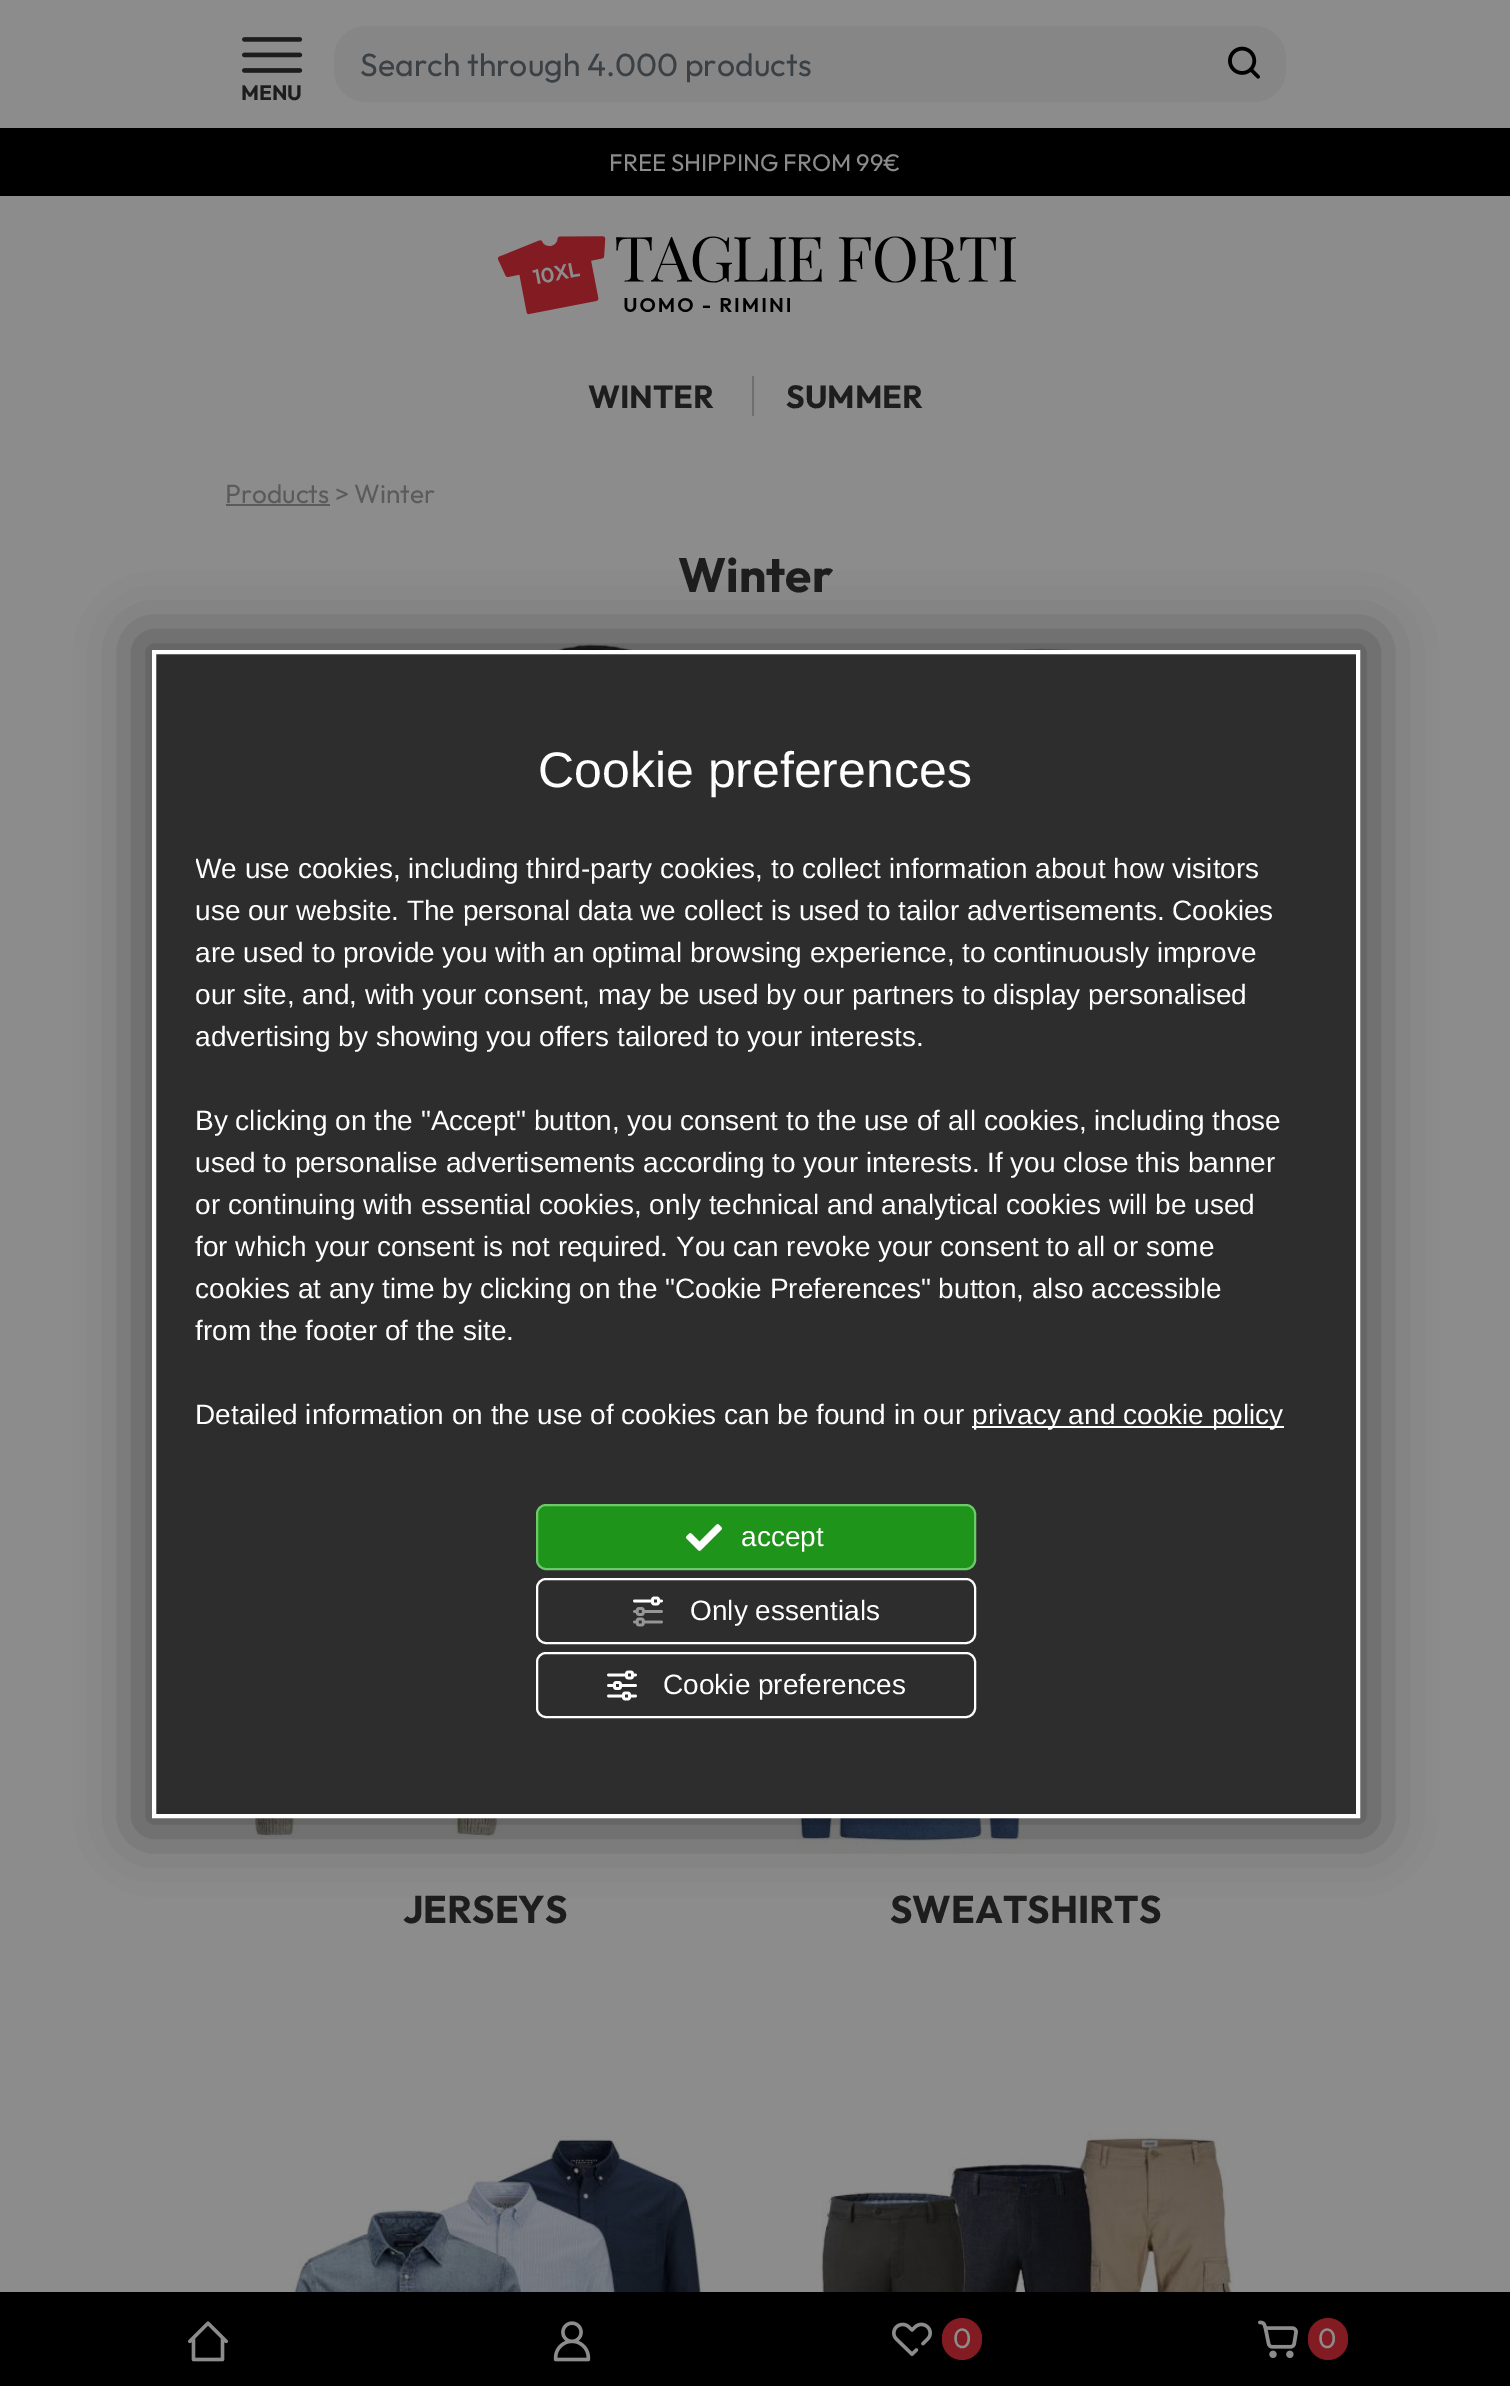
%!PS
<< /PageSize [1510 2386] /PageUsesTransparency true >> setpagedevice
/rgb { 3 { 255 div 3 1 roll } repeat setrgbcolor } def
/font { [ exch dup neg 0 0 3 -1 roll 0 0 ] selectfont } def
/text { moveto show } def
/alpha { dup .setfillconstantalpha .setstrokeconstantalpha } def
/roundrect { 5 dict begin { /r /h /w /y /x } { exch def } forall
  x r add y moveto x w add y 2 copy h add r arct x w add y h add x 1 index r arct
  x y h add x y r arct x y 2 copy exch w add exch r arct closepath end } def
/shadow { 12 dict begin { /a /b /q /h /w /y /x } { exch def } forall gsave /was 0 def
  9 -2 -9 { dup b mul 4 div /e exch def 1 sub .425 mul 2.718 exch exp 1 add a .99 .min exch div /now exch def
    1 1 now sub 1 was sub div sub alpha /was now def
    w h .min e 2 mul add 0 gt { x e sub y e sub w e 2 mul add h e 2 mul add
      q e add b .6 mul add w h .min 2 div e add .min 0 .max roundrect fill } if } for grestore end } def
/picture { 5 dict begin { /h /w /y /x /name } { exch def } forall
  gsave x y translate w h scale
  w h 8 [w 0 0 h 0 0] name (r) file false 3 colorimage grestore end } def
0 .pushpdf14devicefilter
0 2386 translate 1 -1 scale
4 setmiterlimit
140 140 140 rgb
0 0 1510 2386 rectfill
134 134 134 rgb
366 27 moveto 835 0 rlineto 0 74 rlineto -835 0 rlineto -17 0 -31 -14 -31 -31 rcurveto 0 -12 rlineto 0 -17 14 -31 31 -31 rcurveto closepath gsave fill grestore
2 setlinewidth
stroke
1202 26 moveto 52 0 rlineto 17.5 0 32 14.5 32 32 rcurveto 0 12 rlineto 0 17.5 -14.5 32 -32 32 rcurveto -52 0 rlineto closepath fill
(img_01.rgb) 1228 46 32 33 picture
(img_02.rgb) 242 37 61 36 picture
0 0 0 rgb
0 128 1510 68 rectfill
(img_03.rgb) 497 236 519 79 picture
111 111 111 rgb
752 376 2 40 rectfill
91 91 91 rgb
226 504 104 2 rectfill
(img_04.rgb) 248 644 476 6 picture
(img_05.rgb) 788 646 461 4 picture
(img_06.rgb) 248 1818 474 19 picture
(img_07.rgb) 793 1818 467 36 picture
(img_08.rgb) 278 2136 427 156 picture
(img_09.rgb) 821 2128 413 164 picture
0 0 0 rgb
0 2292 1510 94 rectfill
(img_10.rgb) 188 2321 40 41 picture
(img_11.rgb) 553 2321 38 41 picture
(img_12.rgb) 892 2322 40 34 picture
130 27 34 rgb
942 2318 40 42 20 roundrect fill
(img_13.rgb) 1258 2320 40 38 picture
1308 2318 40 42 20 roundrect fill
0 0 0 rgb
138 636 1236 1196 0 29 0.38 shadow
45 45 45 rgb
154 652 moveto 1204 0 rlineto 0 1164 rlineto -1204 0 rlineto closepath gsave fill grestore
255 255 255 rgb
4 setlinewidth
stroke
972 1426 312 2 rectfill
30 148 26 rgb
537 1505 438 64 9 roundrect gsave fill grestore
108 202 105 rgb
2 setlinewidth
stroke
(img_14.rgb) 686 1524 36 27 picture
255 255 255 rgb
537 1579 438 64 9 roundrect stroke
(img_15.rgb) 633 1596 30 31 picture
537 1653 438 64 9 roundrect stroke
(img_16.rgb) 607 1670 30 31 picture
/Outfit-Regular 32 font
59 64 69 rgb
(Search through 4.000 products) 360 76 text
/Outfit-Bold 21 font
29 29 29 rgb
(MENU) 241 100 text
/Outfit-Regular 24 font
140 140 140 rgb
(FREE SHIPPING FROM 99€) 609 171 text
/Outfit-Bold 32 font
29 29 29 rgb
(WINTER) 588 408 text
(SUMMER) 786 408 text
/Outfit-Regular 26.25 font
91 91 91 rgb
(Products > Winter) 225 503 text
/Outfit-Bold 48 font
29 29 29 rgb
(Winter) 678 592 text
/Outfit-Bold 38.5 font
(JERSEYS) 403 1923 text
(SWEATSHIRTS) 890 1923 text
/Outfit-Regular 28 font
140 140 140 rgb
(0) 953 2348 text
(0) 1318 2348 text
/LiberationSans-Regular 50 font
255 255 255 rgb
(Cookie preferences) 538 787 text
gsave
196 848 1120 600 rectclip
/LiberationSans-Regular 28 font
(We use cookies, including third-party cookies, to collect information about how visitors) 195 878 text
grestore
/LiberationSans-Regular 28 font
(use our website. The personal data we collect is used to tailor advertisements. Cookies) 195 920 text
(are used to provide you with an optimal browsing experience, to continuously improve) 195 962 text
(our site, and, with your consent, may be used by our partners to display personalised) 195 1004 text
(advertising by showing you offers tailored to your interests.) 195 1046 text
(By clicking on the "Accept" button, you consent to the use of all cookies, including those) 195 1130 text
(used to personalise advertisements according to your interests. If you close this banner) 195 1172 text
(or continuing with essential cookies, only technical and analytical cookies will be used) 195 1214 text
(for which your consent is not required. You can revoke your consent to all or some) 195 1256 text
(cookies at any time by clicking on the "Cookie Preferences" button, also accessible) 195 1298 text
(from the footer of the site.) 195 1340 text
(Detailed information on the use of cookies can be found in our) 195 1424 text
(privacy and cookie policy) 972 1424 text
(accept) 741 1546 text
(Only essentials) 690 1620 text
(Cookie preferences) 663 1694 text
.poppdf14devicefilter showpage
